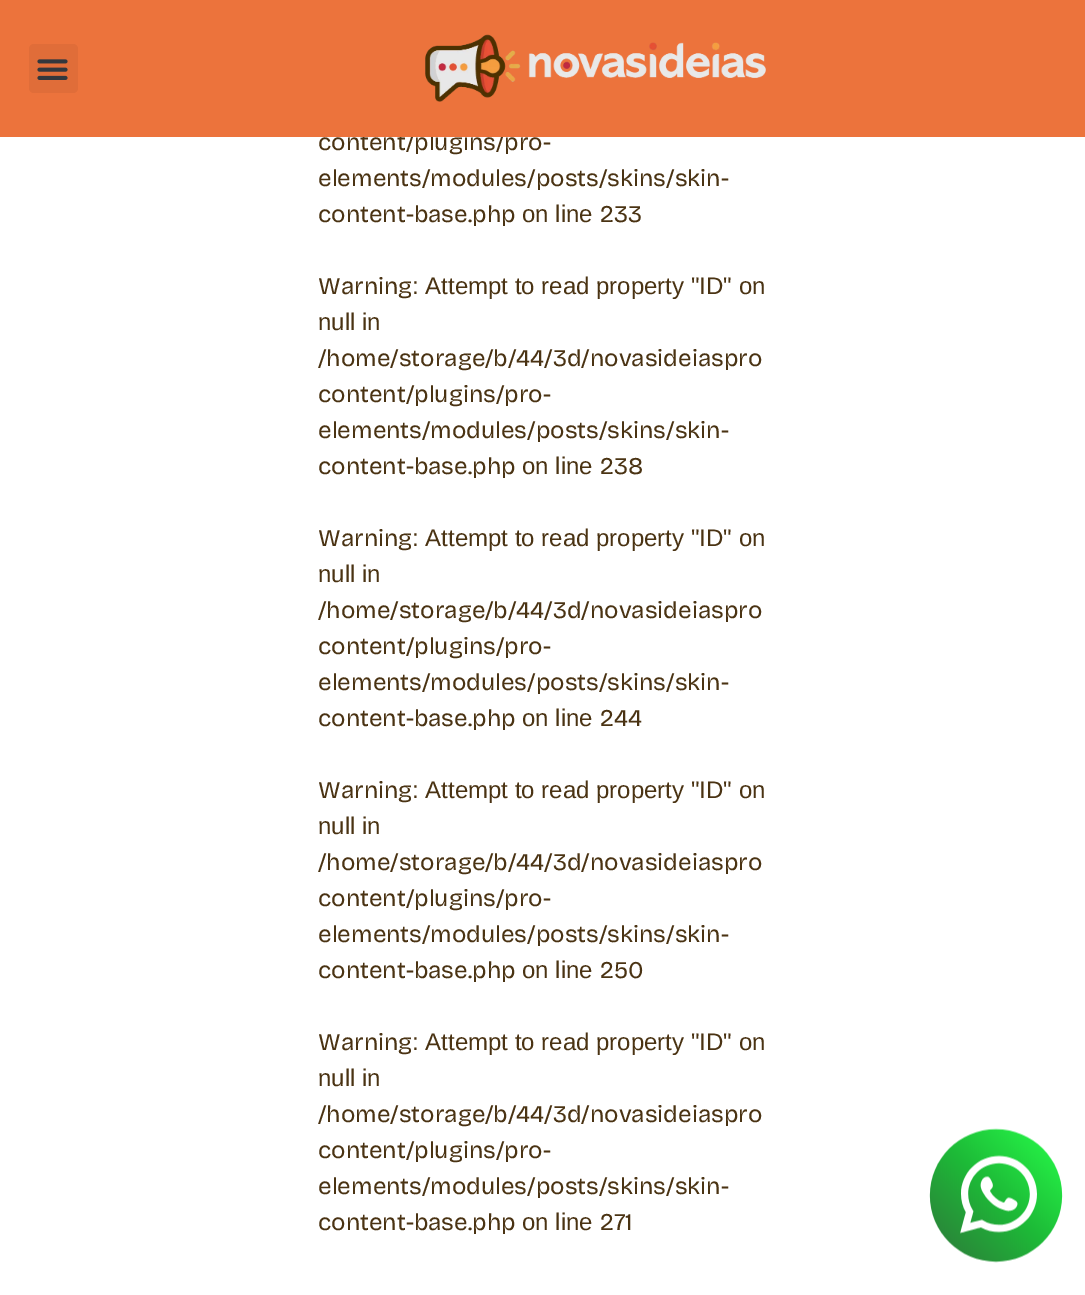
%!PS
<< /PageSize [1085 1295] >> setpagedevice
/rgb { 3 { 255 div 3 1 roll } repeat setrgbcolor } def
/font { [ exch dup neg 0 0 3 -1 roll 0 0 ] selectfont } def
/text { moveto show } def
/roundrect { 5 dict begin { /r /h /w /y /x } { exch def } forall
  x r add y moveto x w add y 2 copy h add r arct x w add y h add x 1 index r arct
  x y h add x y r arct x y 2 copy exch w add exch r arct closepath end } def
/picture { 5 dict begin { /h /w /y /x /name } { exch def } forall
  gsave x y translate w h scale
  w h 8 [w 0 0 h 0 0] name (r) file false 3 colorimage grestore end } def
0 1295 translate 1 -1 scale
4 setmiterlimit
255 255 255 rgb
0 0 1085 1295 rectfill
(img_03.rgb) 929 1128 134 135 picture
/BricolageGrotesque-Regular 24 font
74 51 19 rgb
(content/plugins/pro-) 318 150 text
236 115 60 rgb
0 0 1085 137 rectfill
224 109 57 rgb
29 44 49 49 5 roundrect fill
(img_01.rgb) 37 59 31 21 picture
(img_02.rgb) 425 34 341 68 picture
74 51 19 rgb
(elements/modules/posts/skins/skin-) 318 186 text
(content-base.php) 318 222 text
/LiberationSans-Regular 24 font
(on line) 522 222 text
/BricolageGrotesque-Regular 24 font
(233) 600 222 text
(Warning) 318 294 text
/LiberationSans-Regular 24 font
(: Attempt to read property "ID" on) 412 294 text
(null in) 318 330 text
/BricolageGrotesque-Regular 24 font
(/home/storage/b/44/3d/novasideiaspro) 318 366 text
(content/plugins/pro-) 318 402 text
(elements/modules/posts/skins/skin-) 318 438 text
(content-base.php) 318 474 text
/LiberationSans-Regular 24 font
(on line) 522 474 text
/BricolageGrotesque-Regular 24 font
(238) 600 474 text
(Warning) 318 546 text
/LiberationSans-Regular 24 font
(: Attempt to read property "ID" on) 412 546 text
(null in) 318 582 text
/BricolageGrotesque-Regular 24 font
(/home/storage/b/44/3d/novasideiaspro) 318 618 text
(content/plugins/pro-) 318 654 text
(elements/modules/posts/skins/skin-) 318 690 text
(content-base.php) 318 726 text
/LiberationSans-Regular 24 font
(on line) 522 726 text
/BricolageGrotesque-Regular 24 font
(244) 600 726 text
(Warning) 318 798 text
/LiberationSans-Regular 24 font
(: Attempt to read property "ID" on) 412 798 text
(null in) 318 834 text
/BricolageGrotesque-Regular 24 font
(/home/storage/b/44/3d/novasideiaspro) 318 870 text
(content/plugins/pro-) 318 906 text
(elements/modules/posts/skins/skin-) 318 942 text
(content-base.php) 318 978 text
/LiberationSans-Regular 24 font
(on line) 522 978 text
/BricolageGrotesque-Regular 24 font
(250) 600 978 text
(Warning) 318 1050 text
/LiberationSans-Regular 24 font
(: Attempt to read property "ID" on) 412 1050 text
(null in) 318 1086 text
/BricolageGrotesque-Regular 24 font
(/home/storage/b/44/3d/novasideiaspro) 318 1122 text
(content/plugins/pro-) 318 1158 text
(elements/modules/posts/skins/skin-) 318 1194 text
(content-base.php) 318 1230 text
/LiberationSans-Regular 24 font
(on line) 522 1230 text
/BricolageGrotesque-Regular 24 font
(271) 600 1230 text
showpage
